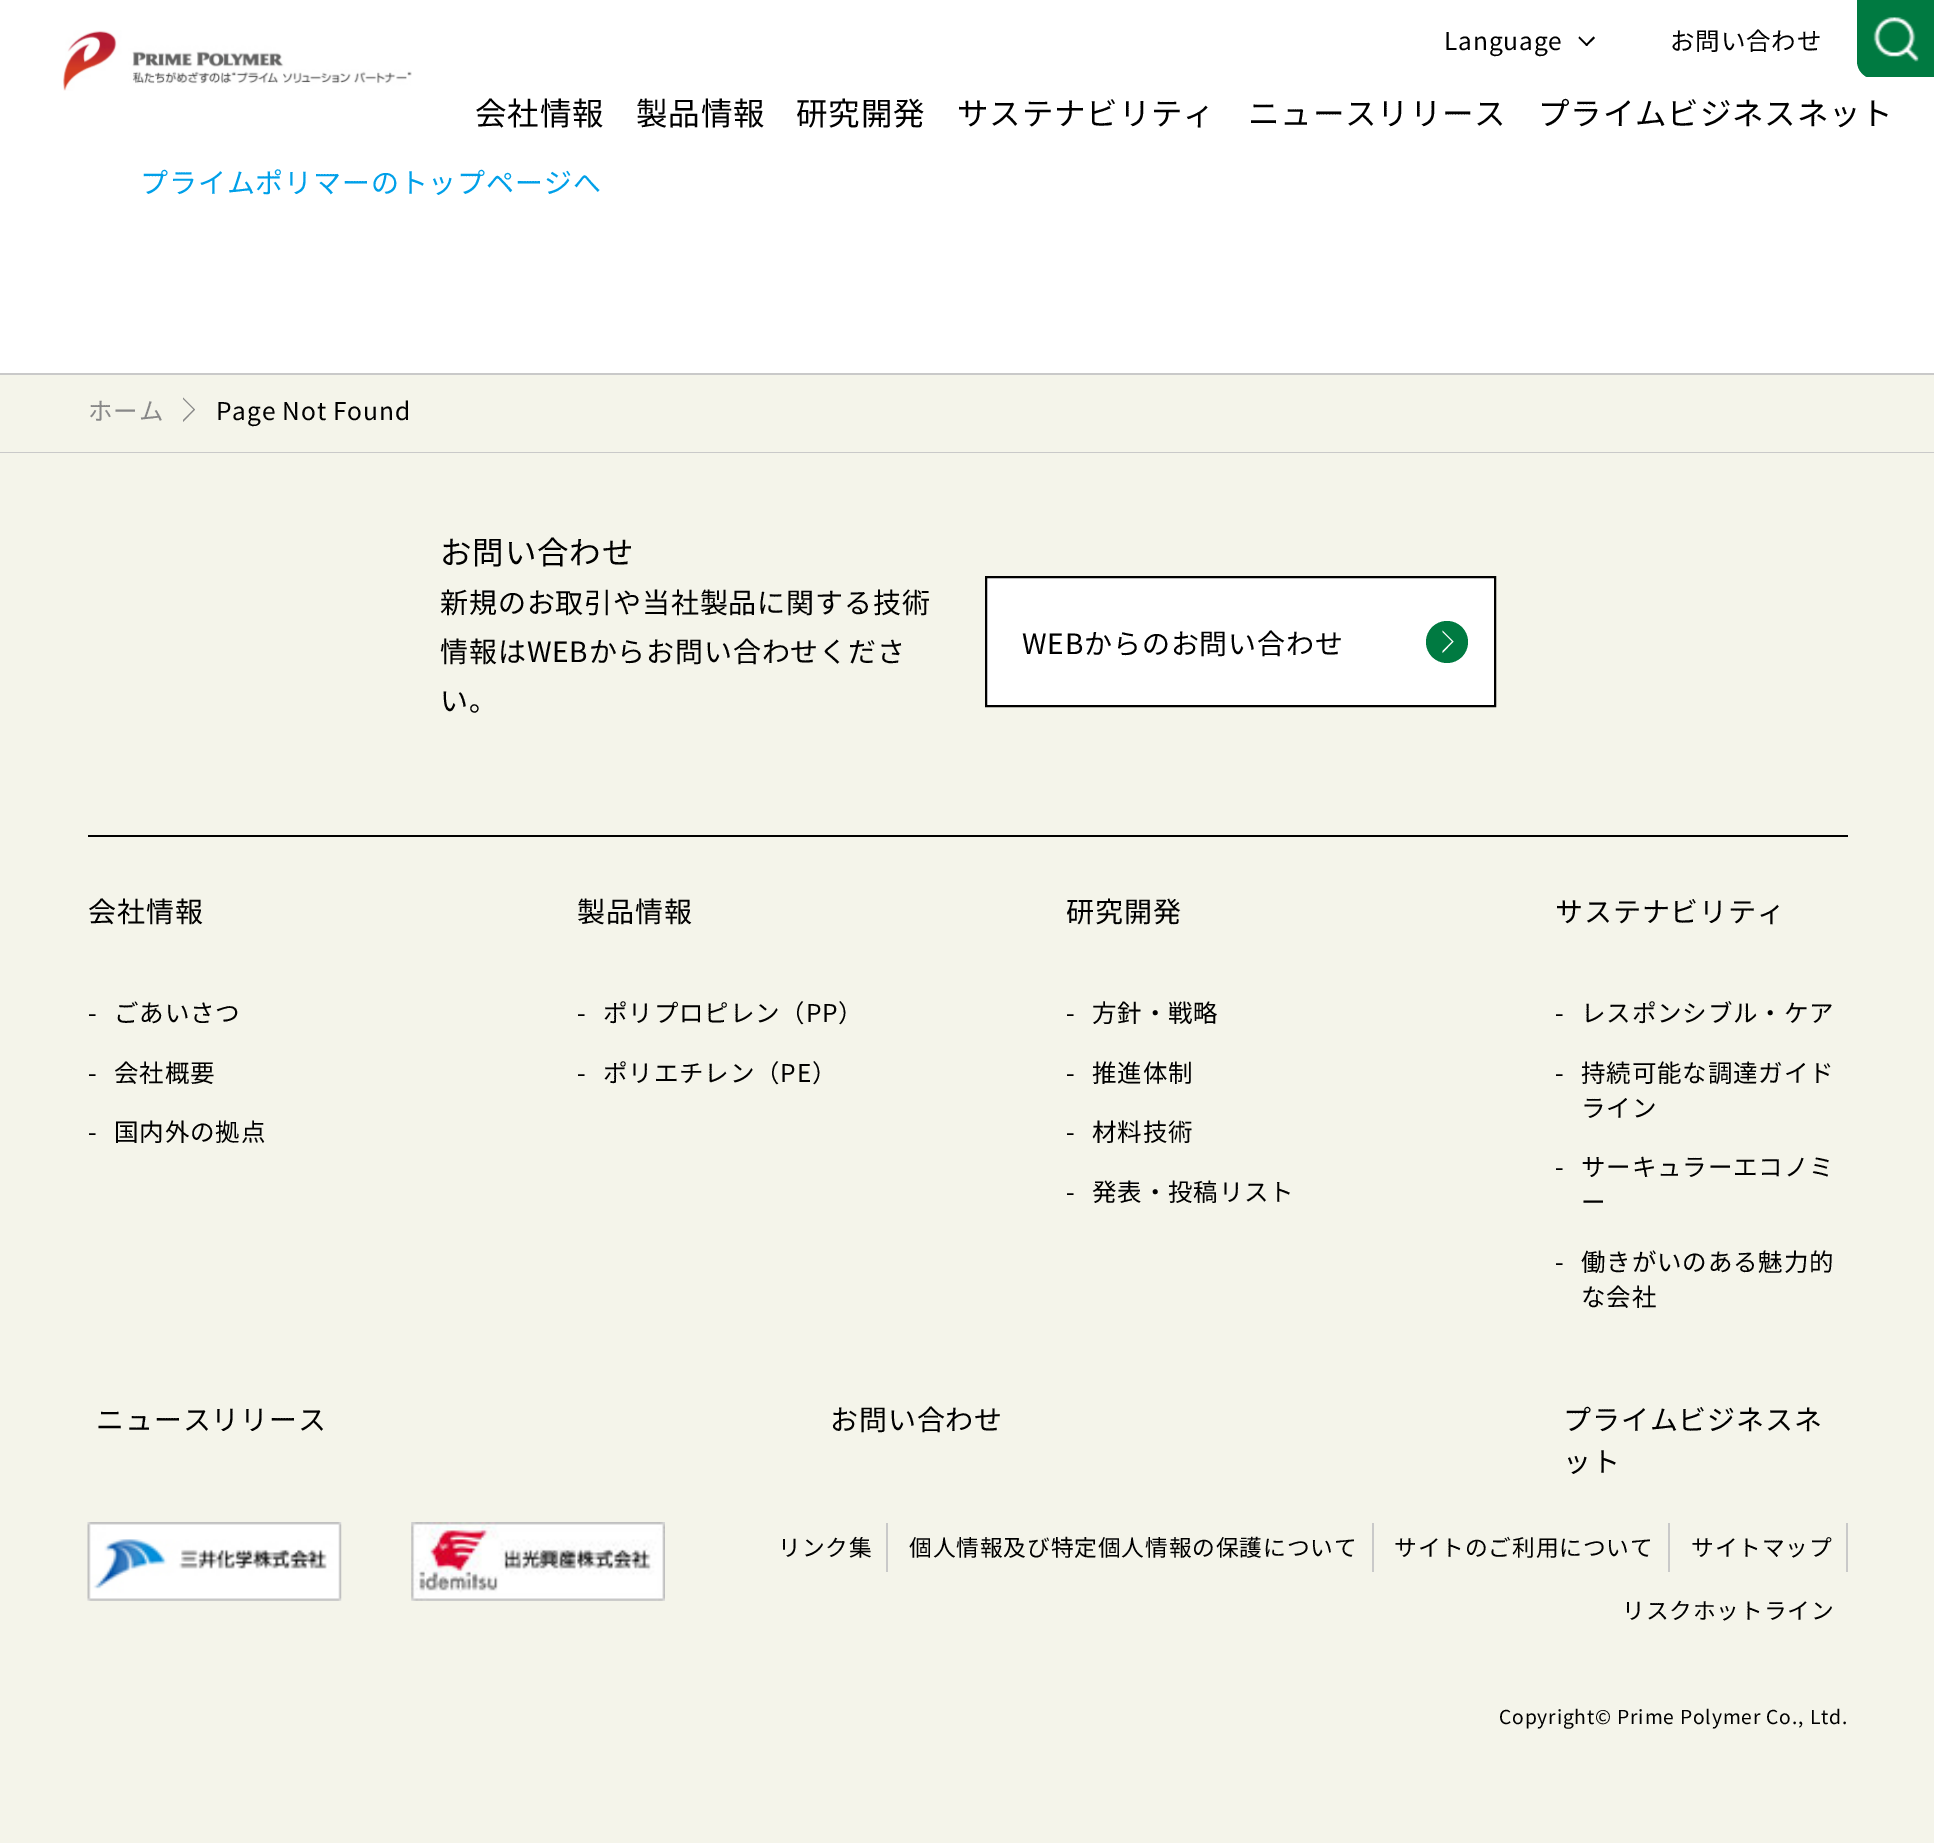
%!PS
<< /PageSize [1934 1843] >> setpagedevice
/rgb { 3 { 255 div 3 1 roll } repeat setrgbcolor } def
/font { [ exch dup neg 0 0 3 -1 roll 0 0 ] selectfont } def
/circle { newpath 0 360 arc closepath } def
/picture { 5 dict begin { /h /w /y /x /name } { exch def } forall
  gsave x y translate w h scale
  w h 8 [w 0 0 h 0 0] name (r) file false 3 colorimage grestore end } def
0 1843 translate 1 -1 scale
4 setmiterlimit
255 255 255 rgb
0 0 1934 1843 rectfill
(img_01.rgb) 63 30 349 61 picture
0 0 0 rgb
1595 38 moveto -8.5 8 rlineto -1 -1 rlineto 8 -8.5 rlineto closepath fill
1588 45 moveto -1.5 1 rlineto -8 -8 rlineto 1 -1.5 rlineto closepath fill
0 122 65 rgb
1857 0 moveto 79 0 rlineto 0 79 rlineto -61 0 rlineto -10 0 -18 -8 -18 -18 rcurveto closepath fill
(img_02.rgb) 1873 17 46 45 picture
255 255 255 rgb
1866 77 68 2 rectfill
244 244 234 rgb
0 375 1934 77 rectfill
201 201 201 rgb
0 373 1934 2 rectfill
0 452 1934 1 rectfill
136 136 136 rgb
195 409.5 moveto -12 -12 rlineto 0 1.5 rlineto 10.5 10.5 rlineto -10.5 10.5 rlineto 0 2 rlineto closepath fill
244 244 234 rgb
0 453 1934 1390 rectfill
255 255 255 rgb
986 577 moveto 509 0 rlineto 0 129 rlineto -509 0 rlineto closepath gsave fill grestore
0 0 0 rgb
2 setlinewidth
stroke
0 122 65 rgb
1447 642 21 circle fill
255 255 255 rgb
1453.5 641.5 moveto -11 -11 rlineto 0 1.5 rlineto 9.5 9.5 rlineto -9.5 9.5 rlineto 0 2 rlineto closepath fill
0 0 0 rgb
88 835 1760 2 rectfill
(img_03.rgb) 87 1522 255 79 picture
(img_04.rgb) 411 1522 254 79 picture
201 201 201 rgb
886 1523 2 49 rectfill
1372 1523 2 49 rectfill
1668 1523 2 49 rectfill
1846 1523 2 49 rectfill
/NotoSansJP-Regular 24.5 font
0 0 0 rgb
1444 50 moveto 0.85 0 (Language) ashow
1670 50 moveto 0.85 0 (お問い合わせ) ashow
/NotoSansJP-Regular 31.5 font
475 125 moveto 0.85 0 (会社情報) ashow
636 125 moveto 0.85 0 (製品情報) ashow
796 125 moveto 0.85 0 (研究開発) ashow
957 125 moveto 0.85 0 (サステナビリティ) ashow
1248 125 moveto 0.85 0 (ニュースリリース) ashow
1538 125 moveto 0.85 0 (プライムビジネスネット) ashow
/NotoSansJP-Regular 28 font
0 160 233 rgb
140 193 moveto 0.85 0 (プライムポリマーのトップページへ) ashow
/NotoSansJP-Regular 24.5 font
136 136 136 rgb
88 420 moveto 0.85 0 (ホーム) ashow
0 0 0 rgb
216 420 moveto 0.85 0 (Page Not Found) ashow
/NotoSansJP-Regular 31.5 font
440 564 moveto 0.85 0 (お問い合わせ) ashow
/NotoSansJP-Regular 28 font
440 613 moveto 0.85 0 (新規のお取引や当社製品に関する技術) ashow
440 662 moveto 0.85 0 (情報はWEBからお問い合わせくださ) ashow
440 711 moveto 0.85 0 (い。) ashow
1022 654 moveto 0.85 0 (WEBからのお問い合わせ) ashow
88 922 moveto 0.85 0 (会社情報) ashow
/NotoSansJP-Regular 24.5 font
88 1022 moveto 0.85 0 (-) ashow
114 1022 moveto 0.85 0 (ごあいさつ) ashow
88 1082 moveto 0.85 0 (-) ashow
114 1082 moveto 0.85 0 (会社概要) ashow
88 1141 moveto 0.85 0 (-) ashow
114 1141 moveto 0.85 0 (国内外の拠点) ashow
/NotoSansJP-Regular 28 font
577 922 moveto 0.85 0 (製品情報) ashow
/NotoSansJP-Regular 24.5 font
577 1022 moveto 0.85 0 (-) ashow
603 1022 moveto 0.85 0 (ポリプロピレン（PP）) ashow
577 1082 moveto 0.85 0 (-) ashow
603 1082 moveto 0.85 0 (ポリエチレン（PE）) ashow
/NotoSansJP-Regular 28 font
1066 922 moveto 0.85 0 (研究開発) ashow
/NotoSansJP-Regular 24.5 font
1066 1022 moveto 0.85 0 (-) ashow
1092 1022 moveto 0.85 0 (方針・戦略) ashow
1066 1082 moveto 0.85 0 (-) ashow
1092 1082 moveto 0.85 0 (推進体制) ashow
1066 1141 moveto 0.85 0 (-) ashow
1092 1141 moveto 0.85 0 (材料技術) ashow
1066 1201 moveto 0.85 0 (-) ashow
1092 1201 moveto 0.85 0 (発表・投稿リスト) ashow
/NotoSansJP-Regular 28 font
1555 922 moveto 0.85 0 (サステナビリティ) ashow
/NotoSansJP-Regular 24.5 font
1555 1022 moveto 0.85 0 (-) ashow
1581 1022 moveto 0.85 0 (レスポンシブル・ケア) ashow
1555 1082 moveto 0.85 0 (-) ashow
1581 1082 moveto 0.85 0 (持続可能な調達ガイド) ashow
1581 1117 moveto 0.85 0 (ライン) ashow
1555 1176 moveto 0.85 0 (-) ashow
1581 1176 moveto 0.85 0 (サーキュラーエコノミ) ashow
1581 1211 moveto 0.85 0 (ー) ashow
1555 1271 moveto 0.85 0 (-) ashow
1581 1271 moveto 0.85 0 (働きがいのある魅力的) ashow
1581 1306 moveto 0.85 0 (な会社) ashow
/NotoSansJP-Regular 28 font
96 1430 moveto 0.85 0 (ニュースリリース) ashow
830 1430 moveto 0.85 0 (お問い合わせ) ashow
1563 1430 moveto 0.85 0 (プライムビジネスネ) ashow
1563 1472 moveto 0.85 0 (ット) ashow
/NotoSansJP-Regular 22.75 font
778 1556 moveto 0.85 0 (リンク集) ashow
909 1556 moveto 0.85 0 (個人情報及び特定個人情報の保護について) ashow
1394 1556 moveto 0.85 0 (サイトのご利用について) ashow
1691 1556 moveto 0.85 0 (サイトマップ) ashow
1622 1619 moveto 0.85 0 (リスクホットライン) ashow
/NotoSansJP-Regular 19.25 font
1499 1724 moveto 0.85 0 (Copyright© Prime Polymer Co., Ltd.) ashow
showpage
